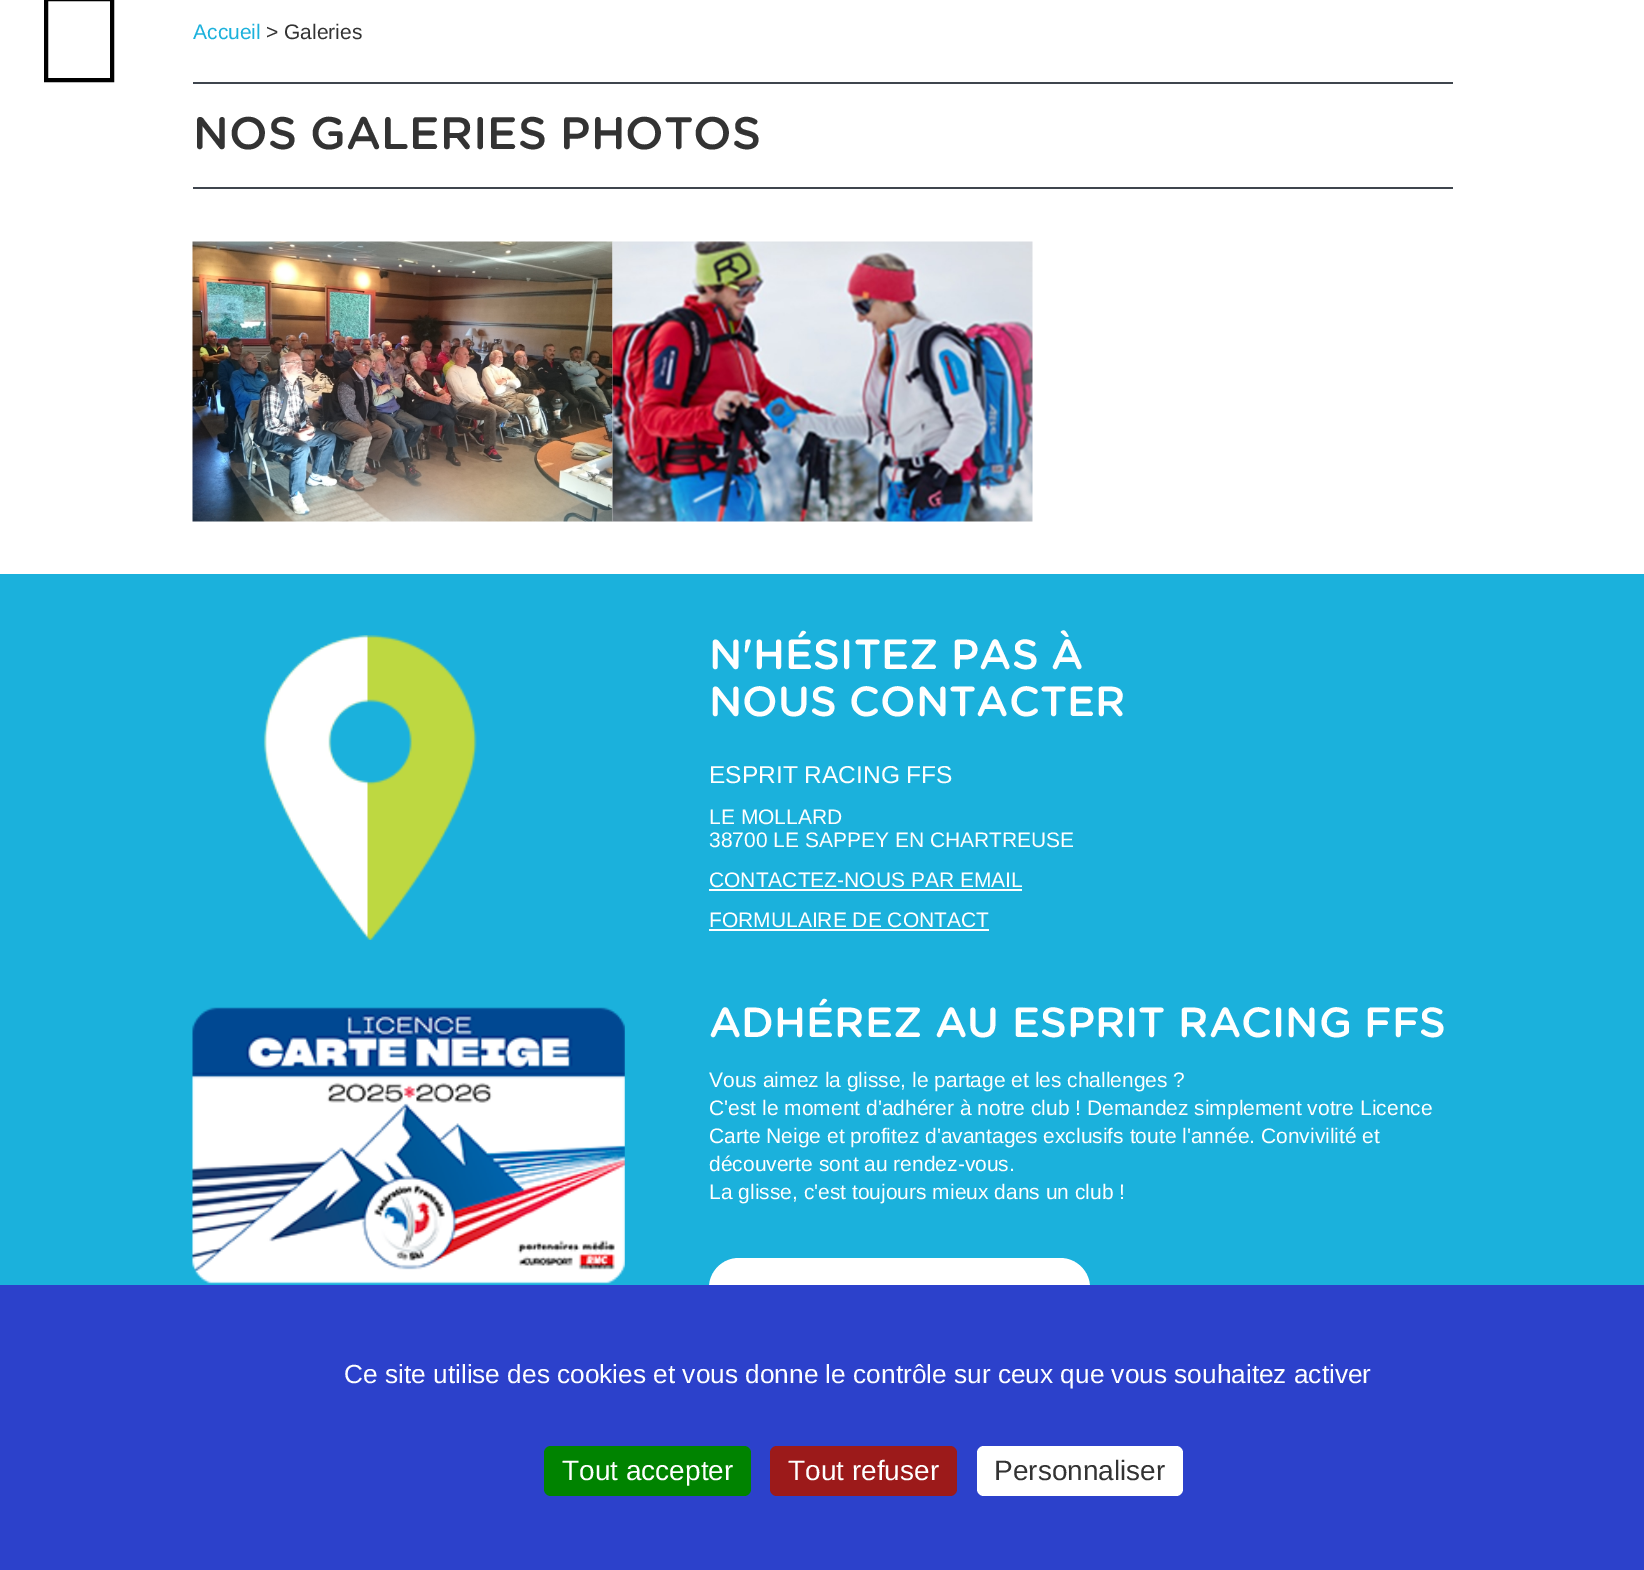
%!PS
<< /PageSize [1644 1570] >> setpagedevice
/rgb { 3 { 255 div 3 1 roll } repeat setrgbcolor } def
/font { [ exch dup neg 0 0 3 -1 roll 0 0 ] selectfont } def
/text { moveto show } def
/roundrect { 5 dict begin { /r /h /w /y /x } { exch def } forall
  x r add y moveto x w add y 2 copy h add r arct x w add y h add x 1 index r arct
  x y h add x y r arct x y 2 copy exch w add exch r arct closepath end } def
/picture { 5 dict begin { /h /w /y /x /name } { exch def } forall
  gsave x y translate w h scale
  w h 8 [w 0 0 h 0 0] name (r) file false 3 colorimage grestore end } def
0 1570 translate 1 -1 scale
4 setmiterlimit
255 255 255 rgb
0 0 1644 1570 rectfill
0 0 0 rgb
4 setlinewidth
46 -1 66 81 rectstroke
63 69 77 rgb
193 82 1260 2 rectfill
193 187 1260 2 rectfill
(img_01.rgb) 192 241 421 281 picture
(img_02.rgb) 612 241 421 281 picture
27 177 220 rgb
0 574 1644 711 rectfill
(img_03.rgb) 263 635 214 305 picture
255 255 255 rgb
709 889 313 2 rectfill
709 929 280 2 rectfill
(img_04.rgb) 192 1007 433 277 picture
709 1258 381 60 30 roundrect fill
44 65 203 rgb
0 1285 1644 285 rectfill
0 131 0 rgb
544 1446 207 50 7 roundrect fill
156 26 26 rgb
770 1446 187 50 7 roundrect fill
255 255 255 rgb
977 1446 206 50 7 roundrect fill
/LiberationSans-Regular 21 font
27 177 220 rgb
(Accueil) 193 39 text
51 51 51 rgb
(> Galeries) 266 39 text
/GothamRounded-Medium 45.5 font
(NOS GALERIES PHOTOS) 193 149 text
/GothamRounded-Medium 42 font
255 255 255 rgb
(N'HÉSITEZ PAS À) 709 669 text
(NOUS CONTACTER) 709 716 text
/LiberationSans-Regular 24.5 font
(ESPRIT RACING FFS) 709 783 text
/LiberationSans-Regular 21 font
(LE MOLLARD) 709 824 text
(38700 LE SAPPEY EN CHARTREUSE) 709 847 text
(CONTACTEZ-NOUS PAR EMAIL) 709 887 text
(FORMULAIRE DE CONTACT) 709 927 text
/GothamRounded-Medium 42 font
(ADHÉREZ AU ESPRIT RACING FFS) 709 1037 text
/LiberationSans-Regular 21 font
(Vous aimez la glisse, le partage et les challenges ?) 709 1087 text
(C'est le moment d'adhérer à notre club ! Demandez simplement votre Licence) 709 1115 text
(Carte Neige et profitez d'avantages exclusifs toute l'année. Convivilité et) 709 1143 text
(découverte sont au rendez-vous.) 709 1171 text
(La glisse, c'est toujours mieux dans un club !) 709 1199 text
/LiberationSans-Regular 26.25 font
(Ce site utilise des cookies et vous donne le contrôle sur ceux que vous souhaitez activer) 344 1383 text
/LiberationSans-Regular 28 font
(Tout accepter) 562 1480 text
(Tout refuser) 788 1480 text
51 51 51 rgb
(Personnaliser) 994 1480 text
showpage
